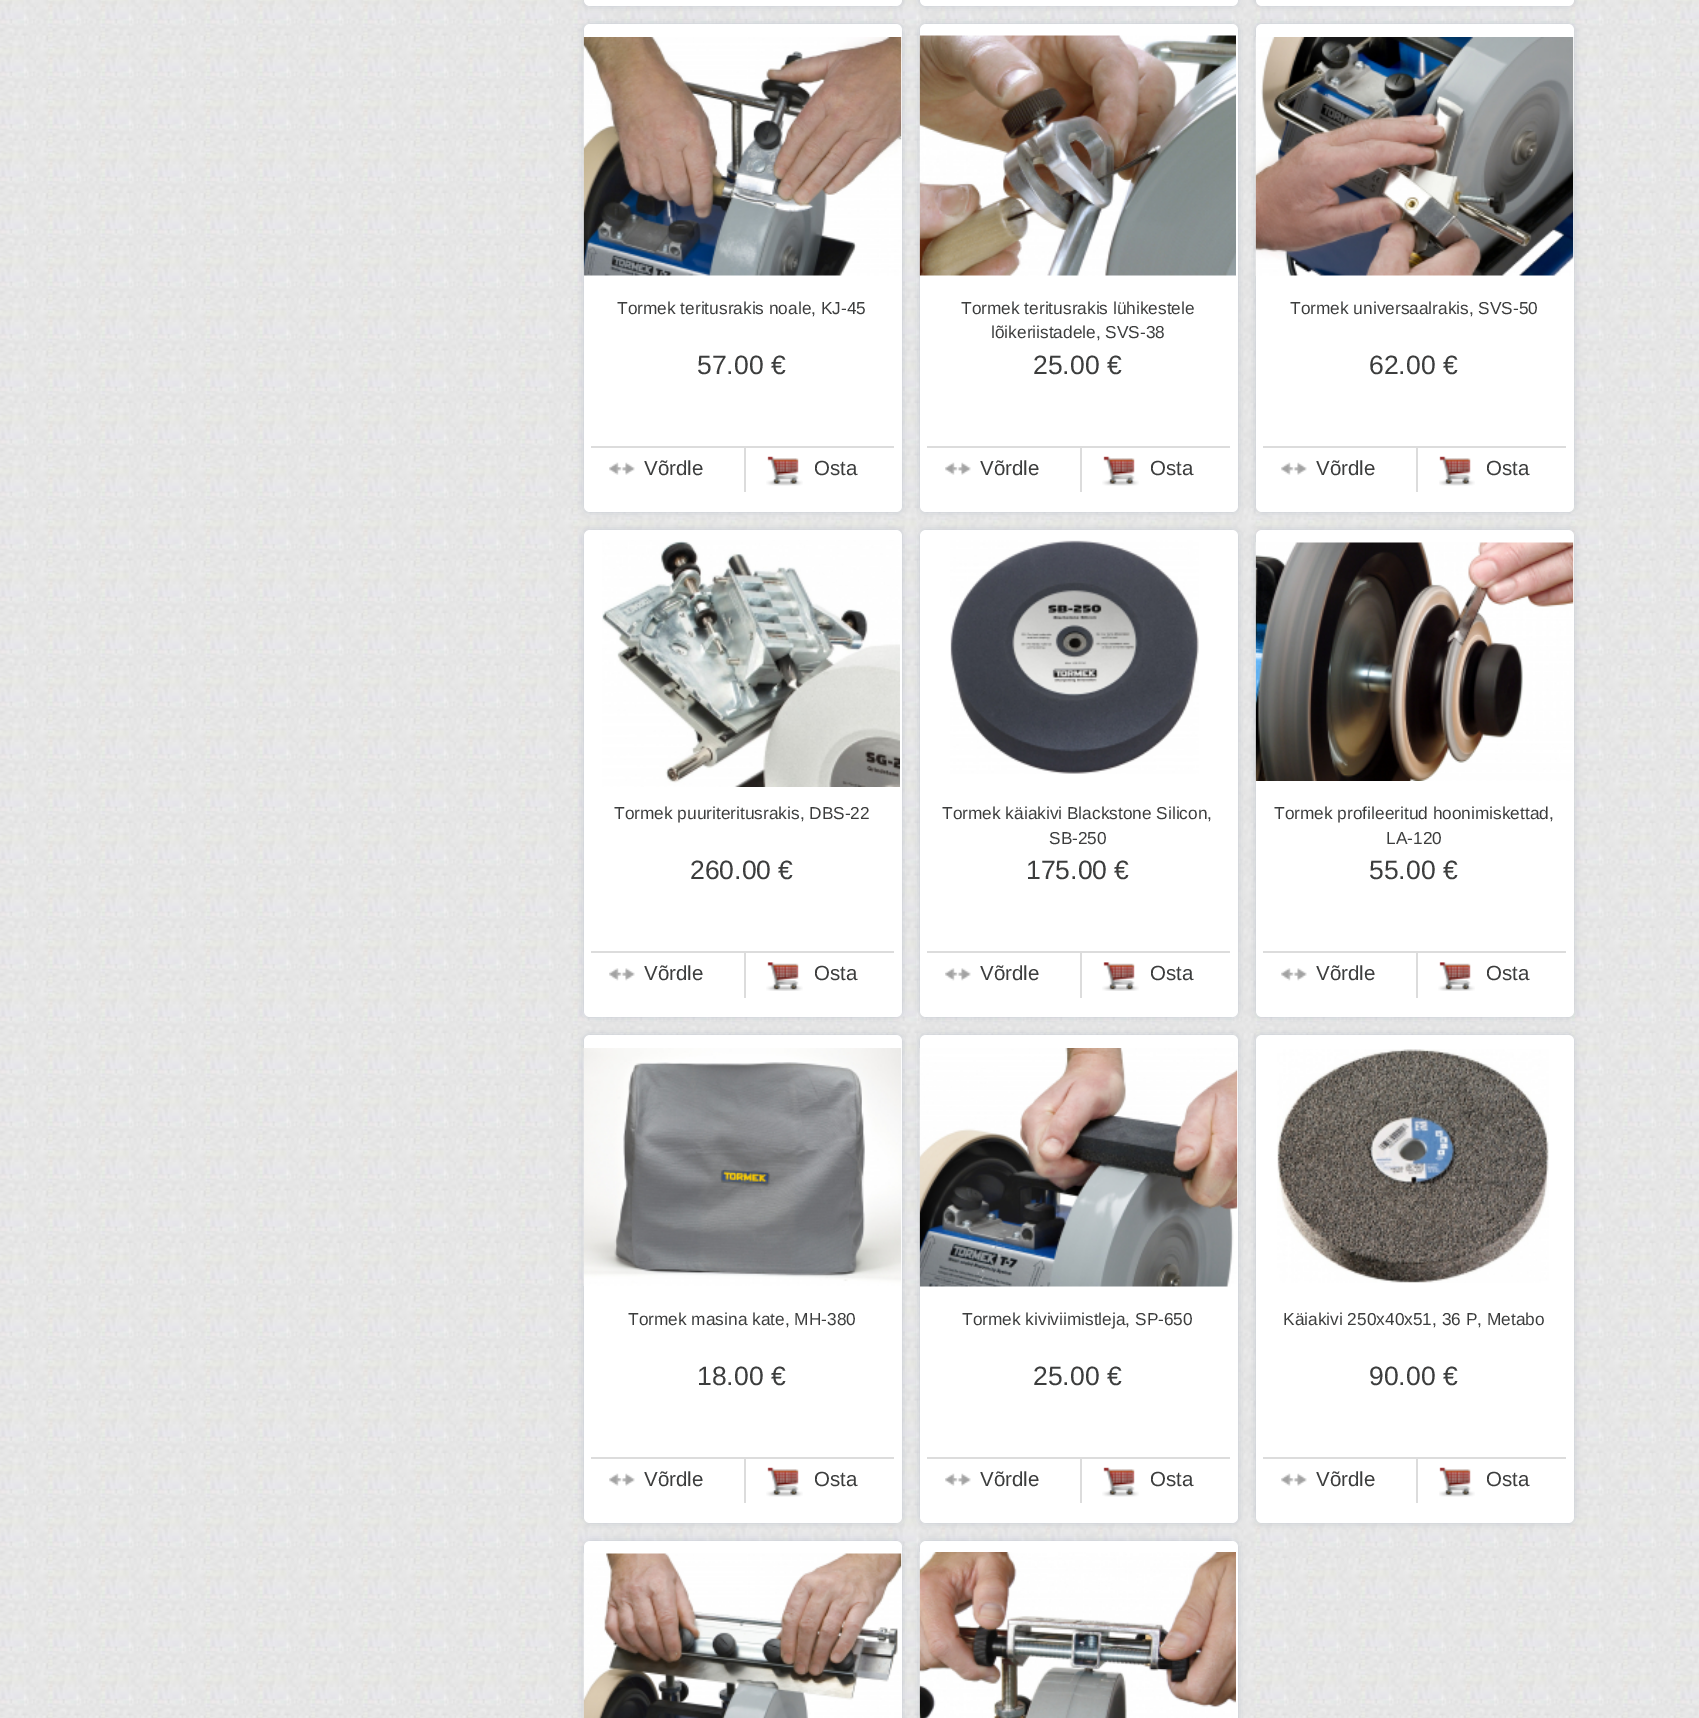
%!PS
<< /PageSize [1699 1718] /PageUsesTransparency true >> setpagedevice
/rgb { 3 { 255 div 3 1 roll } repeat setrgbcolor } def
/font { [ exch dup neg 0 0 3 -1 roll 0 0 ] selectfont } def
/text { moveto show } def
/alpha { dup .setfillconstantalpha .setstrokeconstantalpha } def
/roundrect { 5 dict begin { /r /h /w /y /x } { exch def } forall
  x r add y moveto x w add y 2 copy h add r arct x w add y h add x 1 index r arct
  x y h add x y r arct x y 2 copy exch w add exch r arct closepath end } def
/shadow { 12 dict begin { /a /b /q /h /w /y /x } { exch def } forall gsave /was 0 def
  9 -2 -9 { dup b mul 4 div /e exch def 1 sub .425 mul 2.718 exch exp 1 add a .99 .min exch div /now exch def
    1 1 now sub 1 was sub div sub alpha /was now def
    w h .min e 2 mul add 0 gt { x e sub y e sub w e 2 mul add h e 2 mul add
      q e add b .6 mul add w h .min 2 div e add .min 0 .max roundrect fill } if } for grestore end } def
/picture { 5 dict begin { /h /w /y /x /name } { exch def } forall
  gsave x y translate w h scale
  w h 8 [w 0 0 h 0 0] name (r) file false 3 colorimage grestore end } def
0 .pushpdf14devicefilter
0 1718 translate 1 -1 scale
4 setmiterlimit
255 255 255 rgb
0 0 1699 1718 rectfill
(img_01.rgb) 0 0 1699 1718 picture
196 201 211 rgb
584 -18 318 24 6 4 1 shadow
255 255 255 rgb
584 -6 318 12 6 roundrect fill
196 201 211 rgb
920 -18 318 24 6 4 1 shadow
255 255 255 rgb
920 -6 318 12 6 roundrect fill
196 201 211 rgb
1256 -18 318 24 6 4 1 shadow
255 255 255 rgb
1256 -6 318 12 6 roundrect fill
196 201 211 rgb
584 24 318 488 6 4 1 shadow
255 255 255 rgb
584 24 318 488 6 roundrect fill
(img_02.rgb) 583 37 319 239 picture
220 220 220 rgb
591 446 303 2 rectfill
(img_03.rgb) 609 462 26 13 picture
744 447 2 45 rectfill
(img_04.rgb) 766 456 37 30 picture
196 201 211 rgb
920 24 318 488 6 4 1 shadow
255 255 255 rgb
920 24 318 488 6 roundrect fill
(img_05.rgb) 919 35 317 241 picture
220 220 220 rgb
927 446 303 2 rectfill
(img_03.rgb) 945 462 26 13 picture
1080 447 2 45 rectfill
(img_04.rgb) 1102 456 37 30 picture
196 201 211 rgb
1256 24 318 488 6 4 1 shadow
255 255 255 rgb
1256 24 318 488 6 roundrect fill
(img_06.rgb) 1255 37 319 239 picture
220 220 220 rgb
1263 446 303 2 rectfill
(img_03.rgb) 1281 462 26 13 picture
1416 447 2 45 rectfill
(img_07.rgb) 1439 456 36 30 picture
196 201 211 rgb
584 530 318 487 6 4 1 shadow
255 255 255 rgb
584 530 318 487 6 roundrect fill
(img_08.rgb) 602 540 298 247 picture
220 220 220 rgb
591 951 303 2 rectfill
(img_09.rgb) 609 968 26 13 picture
744 953 2 45 rectfill
(img_10.rgb) 766 962 37 29 picture
196 201 211 rgb
920 530 318 487 6 4 1 shadow
255 255 255 rgb
920 530 318 487 6 roundrect fill
(img_11.rgb) 950 540 249 234 picture
220 220 220 rgb
927 951 303 2 rectfill
(img_09.rgb) 945 968 26 13 picture
1080 953 2 45 rectfill
(img_10.rgb) 1102 962 37 29 picture
196 201 211 rgb
1256 530 318 487 6 4 1 shadow
255 255 255 rgb
1256 530 318 487 6 roundrect fill
(img_12.rgb) 1255 542 319 239 picture
220 220 220 rgb
1263 951 303 2 rectfill
(img_09.rgb) 1281 968 26 13 picture
1416 953 2 45 rectfill
(img_13.rgb) 1438 962 37 29 picture
196 201 211 rgb
584 1035 318 488 6 4 1 shadow
255 255 255 rgb
584 1035 318 488 6 roundrect fill
(img_14.rgb) 583 1048 319 238 picture
220 220 220 rgb
591 1457 303 2 rectfill
(img_03.rgb) 609 1473 26 13 picture
744 1458 2 45 rectfill
(img_04.rgb) 766 1467 37 30 picture
196 201 211 rgb
920 1035 318 488 6 4 1 shadow
255 255 255 rgb
920 1035 318 488 6 roundrect fill
(img_15.rgb) 919 1048 319 239 picture
220 220 220 rgb
927 1457 303 2 rectfill
(img_03.rgb) 945 1473 26 13 picture
1080 1458 2 45 rectfill
(img_04.rgb) 1102 1467 37 30 picture
196 201 211 rgb
1256 1035 318 488 6 4 1 shadow
255 255 255 rgb
1256 1035 318 488 6 roundrect fill
(img_16.rgb) 1277 1049 272 234 picture
220 220 220 rgb
1263 1457 303 2 rectfill
(img_03.rgb) 1281 1473 26 13 picture
1416 1458 2 45 rectfill
(img_07.rgb) 1439 1467 36 30 picture
196 201 211 rgb
584 1541 318 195 6 4 1 shadow
255 255 255 rgb
584 1541 318 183 6 roundrect fill
(img_17.rgb) 583 1553 319 165 picture
196 201 211 rgb
920 1541 318 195 6 4 1 shadow
255 255 255 rgb
920 1541 318 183 6 roundrect fill
(img_18.rgb) 919 1552 317 166 picture
/LiberationSans-Regular 17.3 font
60 61 61 rgb
(Tormek teritusrakis noale, KJ-45) 617 314 text
/LiberationSans-Regular 26.5 font
(57.00 €) 697 374 text
/LiberationSans-Regular 20.5 font
(Võrdle) 644 475 text
(Osta) 814 475 text
/LiberationSans-Regular 17.3 font
(Tormek teritusrakis lühikestele) 961 314 text
(lõikeriistadele, SVS-38) 991 338 text
/LiberationSans-Regular 26.5 font
(25.00 €) 1033 374 text
/LiberationSans-Regular 20.5 font
(Võrdle) 980 475 text
(Osta) 1150 475 text
/LiberationSans-Regular 17.3 font
(Tormek universaalrakis, SVS-50) 1290 314 text
/LiberationSans-Regular 26.5 font
(62.00 €) 1369 374 text
/LiberationSans-Regular 20.5 font
(Võrdle) 1316 475 text
(Osta) 1486 475 text
/LiberationSans-Regular 17.3 font
(Tormek puuriteritusrakis, DBS-22) 614 819 text
/LiberationSans-Regular 26.5 font
(260.00 €) 690 879 text
/LiberationSans-Regular 20.5 font
(Võrdle) 644 980 text
(Osta) 814 980 text
/LiberationSans-Regular 17.3 font
(Tormek käiakivi Blackstone Silicon,) 942 819 text
(SB-250) 1049 844 text
/LiberationSans-Regular 26.5 font
(175.00 €) 1026 879 text
/LiberationSans-Regular 20.5 font
(Võrdle) 980 980 text
(Osta) 1150 980 text
/LiberationSans-Regular 17.3 font
(Tormek profileeritud hoonimiskettad,) 1274 819 text
(LA-120) 1386 844 text
/LiberationSans-Regular 26.5 font
(55.00 €) 1369 879 text
/LiberationSans-Regular 20.5 font
(Võrdle) 1316 980 text
(Osta) 1486 980 text
/LiberationSans-Regular 17.3 font
(Tormek masina kate, MH-380) 628 1325 text
/LiberationSans-Regular 26.5 font
(18.00 €) 697 1385 text
/LiberationSans-Regular 20.5 font
(Võrdle) 644 1486 text
(Osta) 814 1486 text
/LiberationSans-Regular 17.3 font
(Tormek kiviviimistleja, SP-650) 962 1325 text
/LiberationSans-Regular 26.5 font
(25.00 €) 1033 1385 text
/LiberationSans-Regular 20.5 font
(Võrdle) 980 1486 text
(Osta) 1150 1486 text
/LiberationSans-Regular 17.3 font
(Käiakivi 250x40x51, 36 P, Metabo) 1283 1325 text
/LiberationSans-Regular 26.5 font
(90.00 €) 1369 1385 text
/LiberationSans-Regular 20.5 font
(Võrdle) 1316 1486 text
(Osta) 1486 1486 text
.poppdf14devicefilter showpage
